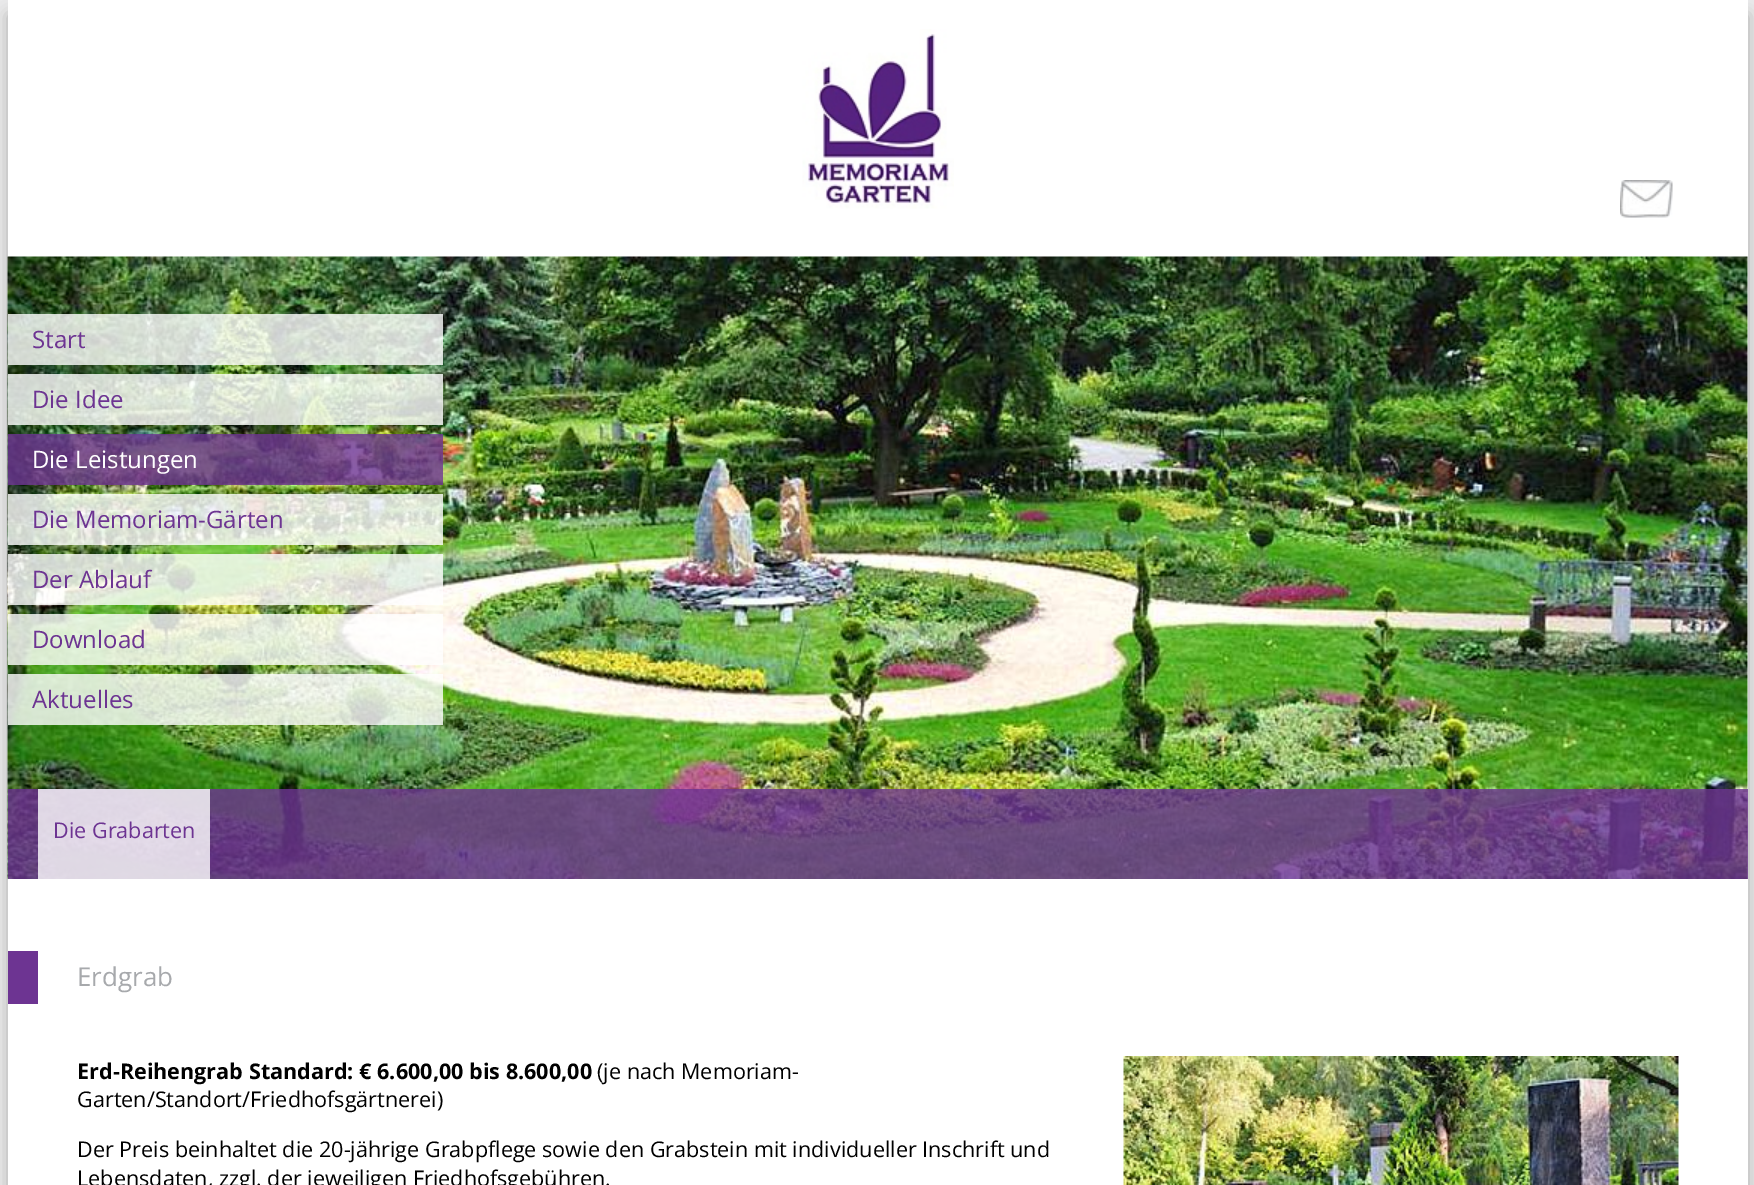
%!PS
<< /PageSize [1754 1185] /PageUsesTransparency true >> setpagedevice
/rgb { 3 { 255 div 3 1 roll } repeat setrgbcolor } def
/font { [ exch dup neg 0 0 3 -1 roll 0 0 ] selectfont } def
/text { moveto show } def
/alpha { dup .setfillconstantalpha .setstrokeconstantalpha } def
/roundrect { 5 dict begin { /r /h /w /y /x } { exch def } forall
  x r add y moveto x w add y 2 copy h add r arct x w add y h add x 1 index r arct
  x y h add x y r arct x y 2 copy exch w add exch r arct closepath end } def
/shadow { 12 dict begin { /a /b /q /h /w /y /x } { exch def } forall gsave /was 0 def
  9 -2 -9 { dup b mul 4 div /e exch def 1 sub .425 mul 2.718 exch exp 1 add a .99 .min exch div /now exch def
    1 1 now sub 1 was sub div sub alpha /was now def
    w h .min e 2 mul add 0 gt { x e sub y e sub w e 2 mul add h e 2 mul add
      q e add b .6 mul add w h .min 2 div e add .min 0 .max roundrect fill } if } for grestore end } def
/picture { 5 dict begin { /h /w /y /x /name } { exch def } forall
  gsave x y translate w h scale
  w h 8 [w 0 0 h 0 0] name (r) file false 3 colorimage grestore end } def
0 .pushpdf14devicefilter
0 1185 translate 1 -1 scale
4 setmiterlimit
234 234 235 rgb
0 0 1754 1185 rectfill
0 0 0 rgb
8 15 1740 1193 0 7.5 0.25 shadow
255 255 255 rgb
8 0 1740 1185 rectfill
(img_01.rgb) 802 29 152 180 picture
(img_02.rgb) 1620 180 53 38 picture
(img_03.rgb) 7 256 1741 623 picture
0.8 alpha
8 314 435 51 rectfill
8 374 435 51 rectfill
109 52 146 rgb
8 434 435 51 rectfill
255 255 255 rgb
8 494 435 51 rectfill
8 554 435 51 rectfill
8 614 435 51 rectfill
8 674 435 51 rectfill
109 52 146 rgb
8 789 1740 90 rectfill
255 255 255 rgb
38 789 172 90 rectfill
1 alpha
109 52 146 rgb
8 951 30 53 rectfill
(img_04.rgb) 1123 1056 556 129 picture
/OpenSans-Regular 24 font
(Start) 32 348 text
(Die Idee) 32 408 text
255 255 255 rgb
(Die Leistungen) 32 468 text
109 52 146 rgb
(Die Memoriam-Gärten) 32 528 text
(Der Ablauf) 32 588 text
(Download) 32 648 text
(Aktuelles) 32 708 text
/OpenSans-Regular 21.6 font
(Die Grabarten) 53 838 text
/OpenSans-Regular 26 font
167 169 172 rgb
(Erdgrab) 77 986 text
/OpenSans-Bold 21.6 font
0 0 0 rgb
(Erd-Reihengrab Standard: € 6.600,00 bis 8.600,00) 77 1079 text
/OpenSans-Regular 21.6 font
(\(je nach Memoriam-) 597 1079 text
(Garten/Standort/Friedhofsgärtnerei\)) 77 1107 text
(Der Preis beinhaltet die 20-jährige Grabpflege sowie den Grabstein mit individueller Inschrift und) 77 1157 text
(Lebensdaten, zzgl. der jeweiligen Friedhofsgebühren.) 77 1186 text
.poppdf14devicefilter showpage
